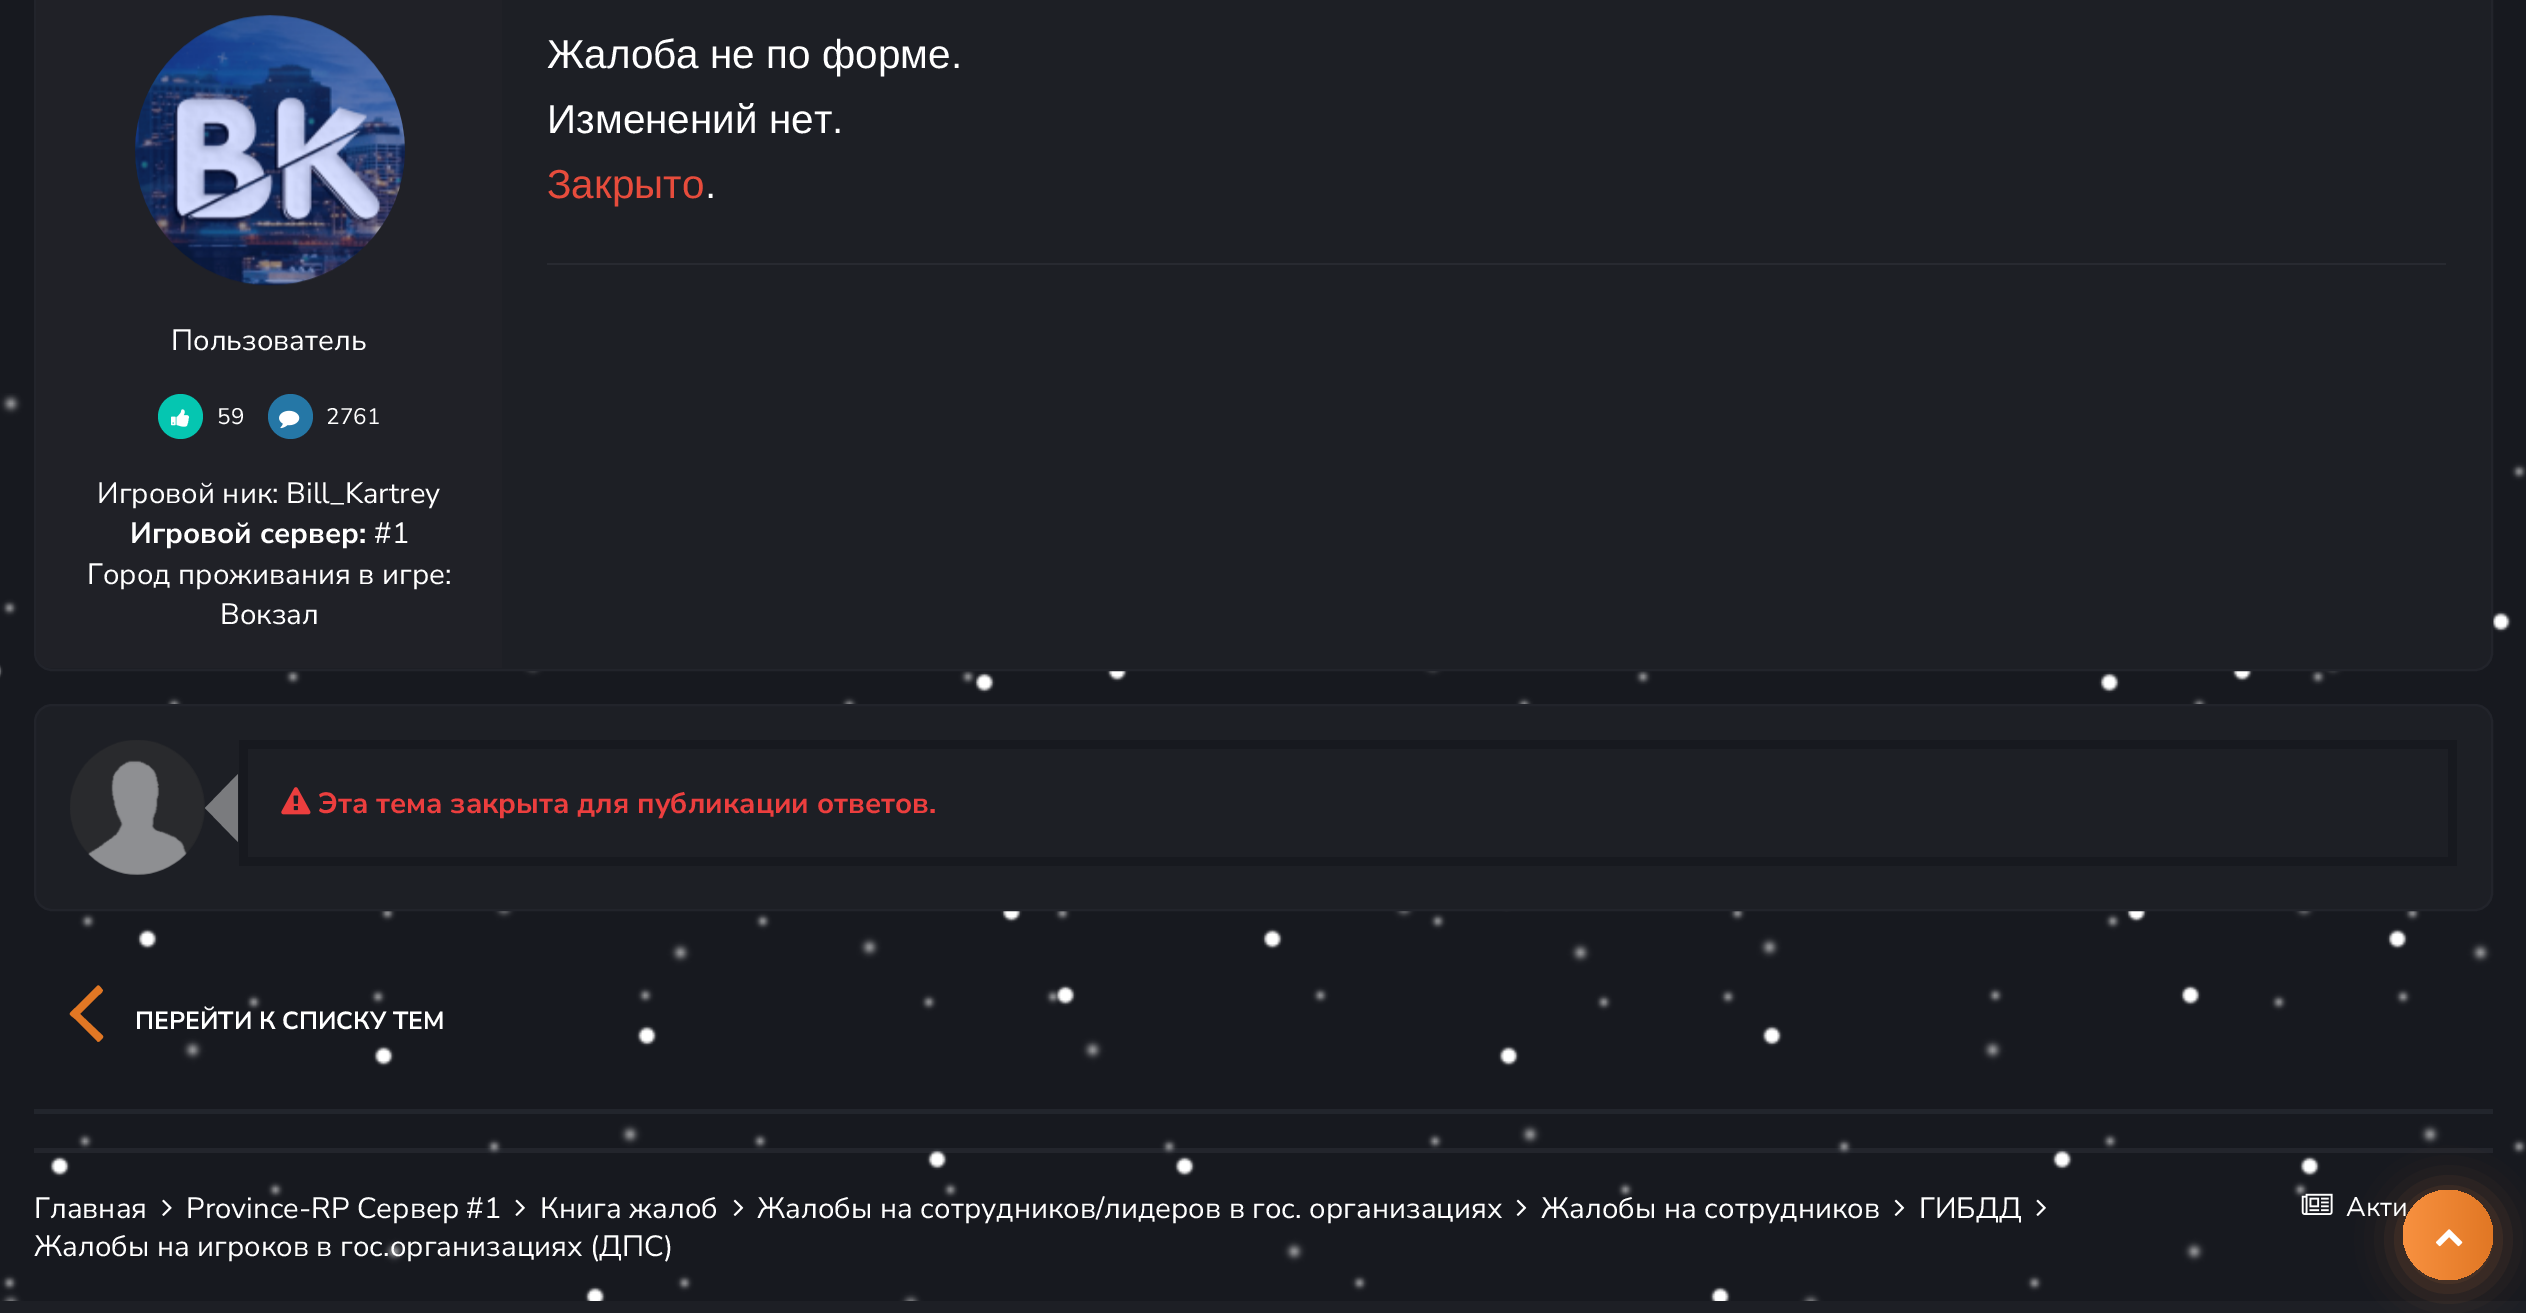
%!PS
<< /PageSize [2526 1313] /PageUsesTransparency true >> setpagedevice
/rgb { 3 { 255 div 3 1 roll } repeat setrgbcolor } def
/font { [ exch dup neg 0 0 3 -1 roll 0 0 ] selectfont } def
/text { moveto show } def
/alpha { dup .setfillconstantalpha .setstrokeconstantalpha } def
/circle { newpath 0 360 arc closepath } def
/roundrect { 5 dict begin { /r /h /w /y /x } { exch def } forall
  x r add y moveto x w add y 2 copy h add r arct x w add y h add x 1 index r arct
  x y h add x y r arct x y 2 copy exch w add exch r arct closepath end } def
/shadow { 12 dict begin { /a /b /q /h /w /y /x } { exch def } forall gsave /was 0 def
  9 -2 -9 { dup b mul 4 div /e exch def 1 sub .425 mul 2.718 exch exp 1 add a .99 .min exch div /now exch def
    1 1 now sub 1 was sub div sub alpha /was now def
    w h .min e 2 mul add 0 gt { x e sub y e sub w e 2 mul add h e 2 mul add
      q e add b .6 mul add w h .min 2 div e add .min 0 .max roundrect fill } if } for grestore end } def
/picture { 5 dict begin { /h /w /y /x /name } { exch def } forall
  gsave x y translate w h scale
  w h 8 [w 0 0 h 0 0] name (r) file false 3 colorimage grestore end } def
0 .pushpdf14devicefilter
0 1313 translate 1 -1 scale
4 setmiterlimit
23 25 31 rgb
0 0 2526 1313 rectfill
(img_01.rgb) 0 393 2526 908 picture
29 31 37 rgb
35 -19 2457 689 17 roundrect gsave fill grestore
34 36 43 rgb
2 setlinewidth
stroke
40 42 49 rgb
547 263 1899 2 rectfill
32 33 39 rgb
52 -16 moveto 450 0 rlineto 0 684 rlineto -450 0 rlineto -9 0 -16 -7 -16 -16 rcurveto 0 -652 rlineto 0 -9 7 -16 16 -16 rcurveto closepath fill
(img_02.rgb) 135 15 270 271 picture
5 198 177 rgb
180.5 416.5 22.5 circle fill
(img_03.rgb) 171 409 19 18 picture
37 119 166 rgb
290.5 416.5 22.5 circle fill
(img_04.rgb) 279 410 21 19 picture
29 31 37 rgb
35 705 2457 205 17 roundrect gsave fill grestore
34 36 43 rgb
stroke
(img_05.rgb) 70 740 135 135 picture
23 25 31 rgb
239 740 2218 126 rectfill
122 123 126 rgb
238 774 moveto 0 68 rlineto -33 -34 rlineto closepath fill
29 31 37 rgb
248 749 2200 108 rectfill
(img_06.rgb) 281 787 30 28 picture
225 119 36 rgb
102 989 moveto 3 2 -3 6 -3 6 rcurveto -19 19 rlineto 19 18 rlineto 4 4 6 4 2 8 rcurveto -1 1 -3 3 -4 1 rcurveto -22 -22 rlineto -7 -6 -7 -4 0 -11 rcurveto 22 -22 rlineto 2 -2 4 2 5 3 rcurveto closepath fill
34 37 44 rgb
34 1109 2459 5 rectfill
0.1 alpha
136 141 157 rgb
34 1148 2459 5 rectfill
1 alpha
(img_07.rgb) 162 1199 10 17 picture
(img_08.rgb) 515 1199 10 17 picture
(img_09.rgb) 733 1199 11 17 picture
(img_09.rgb) 1516 1199 11 17 picture
(img_09.rgb) 1894 1199 11 17 picture
(img_08.rgb) 2036 1199 10 17 picture
(img_10.rgb) 2301 1193 32 22 picture
29 31 37 rgb
0 1301 2526 12 rectfill
248 145 64 rgb
2399 1190 99 99 49.5 20 0.3 shadow
/LiberationSans-Regular 40.5 font
255 255 255 rgb
(Жалоба не по форме.) 547 68 text
(Изменений нет.) 547 133 text
231 76 60 rgb
(Закрыто) 547 198 text
255 255 255 rgb
(.) 705 198 text
/NunitoSans-Regular 29.25 font
(Пользователь) 171 350 text
/NunitoSans-Regular 22.5 font
(59) 217 424 text
(2761) 326 424 text
/NunitoSans-Regular 29.25 font
(Игровой ник: Bill_Kartrey) 97 503 text
/NunitoSans-Bold 29.25 font
(Игровой сервер:) 130 543 text
/NunitoSans-Regular 29.25 font
(#1) 374 543 text
(Город проживания в игре:) 87 584 text
(Вокзал) 220 624 text
/NunitoSans-Bold 29.25 font
236 62 62 rgb
(Эта тема закрыта для публикации ответов.) 318 813 text
/NunitoSans-Bold 24.75 font
255 255 255 rgb
(ПЕРЕЙТИ К СПИСКУ ТЕМ) 135 1029 text
/NunitoSans-Regular 29.25 font
(Главная) 34 1218 text
(Province-RP Сервер #1) 186 1218 text
(Книга жалоб) 540 1218 text
(Жалобы на сотрудников/лидеров в гос. организациях) 757 1218 text
(Жалобы на сотрудников) 1541 1218 text
(ГИБДД) 1919 1218 text
(Жалобы на игроков в гос.организациях \(ДПС\)) 34 1256 text
/NunitoSans-Regular 27 font
(Акти) 2346 1216 text
gsave 2448 1235 45 circle clip newpath
<< /ShadingType 2 /ColorSpace /DeviceRGB /Coords [2403 1235 2493 1235] /Extend [true true] /Function << /FunctionType 2 /Domain [0 1] /C0 [0.973 0.569 0.251] /C1 [0.882 0.467 0.141] /N 1 >> >> shfill grestore
(img_11.rgb) 2436 1229 27 18 picture
.poppdf14devicefilter showpage
